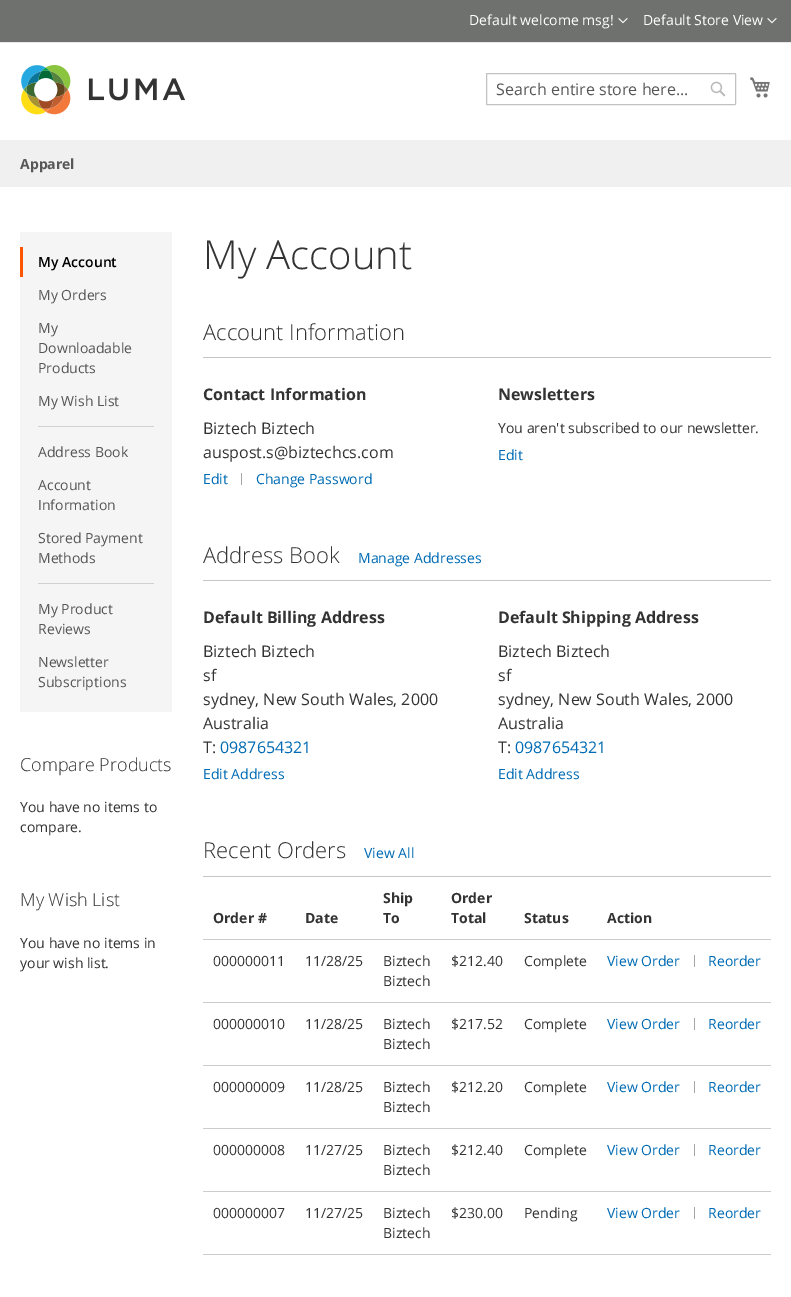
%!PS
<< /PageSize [791 1297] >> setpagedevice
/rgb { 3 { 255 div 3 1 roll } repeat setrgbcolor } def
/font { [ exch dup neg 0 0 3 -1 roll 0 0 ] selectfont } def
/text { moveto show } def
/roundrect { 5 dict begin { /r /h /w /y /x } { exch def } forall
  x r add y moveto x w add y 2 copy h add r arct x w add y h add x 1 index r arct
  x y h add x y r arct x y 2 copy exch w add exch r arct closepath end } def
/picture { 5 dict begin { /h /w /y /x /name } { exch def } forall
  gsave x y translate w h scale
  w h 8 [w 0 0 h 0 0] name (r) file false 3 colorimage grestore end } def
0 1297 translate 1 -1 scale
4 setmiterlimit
255 255 255 rgb
0 0 791 1297 rectfill
110 113 110 rgb
0 0 791 42 rectfill
232 232 232 rgb
0 42 791 1 rectfill
(img_01.rgb) 618 18 10 6 picture
(img_01.rgb) 767 18 10 6 picture
(img_02.rgb) 21 65 164 50 picture
194 194 194 rgb
486.5 73.5 249 31 0.5 roundrect stroke
(img_03.rgb) 710 81 16 16 picture
(img_04.rgb) 750 77 20 21 picture
240 240 240 rgb
0 140 791 47 rectfill
245 245 245 rgb
20 232 152 480 rectfill
255 85 1 rgb
20 247 3 30 rectfill
209 209 209 rgb
38 426 116 1 rectfill
38 583 116 1 rectfill
198 198 198 rgb
203 357 568 1 rectfill
166 166 166 rgb
241 473 1 12 rectfill
198 198 198 rgb
203 580 568 1 rectfill
203 876 568 1 rectfill
204 204 204 rgb
203 1254 568 1 rectfill
203 939 568 1 rectfill
166 166 166 rgb
694 955 1 12 rectfill
204 204 204 rgb
203 1002 568 1 rectfill
166 166 166 rgb
694 1018 1 12 rectfill
204 204 204 rgb
203 1065 568 1 rectfill
166 166 166 rgb
694 1081 1 12 rectfill
204 204 204 rgb
203 1128 568 1 rectfill
166 166 166 rgb
694 1144 1 12 rectfill
204 204 204 rgb
203 1191 568 1 rectfill
166 166 166 rgb
694 1207 1 12 rectfill
/OpenSans-Regular 14 font
255 255 255 rgb
(Default welcome msg!) 469 25 text
(Default Store View) 643 25 text
/OpenSans-Regular 16 font
87 87 87 rgb
(Search entire store here...) 496 95 text
/OpenSans-Bold 14 font
(Apparel) 20 169 text
/OpenSans-SemiBold 14 font
0 0 0 rgb
(My Account) 38 267 text
/OpenSans-Regular 14 font
87 87 87 rgb
(My Orders) 38 300 text
(My) 38 333 text
(Downloadable) 38 353 text
(Products) 38 373 text
(My Wish List) 38 406 text
(Address Book) 38 457 text
(Account) 38 490 text
(Information) 38 510 text
(Stored Payment) 38 543 text
(Methods) 38 563 text
(My Product) 38 614 text
(Reviews) 38 634 text
(Newsletter) 38 667 text
(Subscriptions) 38 687 text
/OpenSans-Light 40 font
51 51 51 rgb
(My Account) 203 269 text
/OpenSans-Light 22 font
(Account Information) 203 340 text
/OpenSans-Bold 16 font
(Contact Information) 203 400 text
/OpenSans-Regular 16 font
(Biztech Biztech) 203 434 text
(auspost.s@biztechcs.com) 203 458 text
/OpenSans-Regular 14 font
0 107 180 rgb
(Edit) 203 484 text
(Change Password) 256 484 text
/OpenSans-Bold 16 font
51 51 51 rgb
(Newsletters) 498 400 text
/OpenSans-Regular 14 font
(You aren't subscribed to our newsletter.) 498 433 text
0 107 180 rgb
(Edit) 498 460 text
/OpenSans-Light 22 font
51 51 51 rgb
(Address Book) 203 563 text
/OpenSans-Regular 14 font
0 107 180 rgb
(Manage Addresses) 358 563 text
/OpenSans-Bold 16 font
51 51 51 rgb
(Default Billing Address) 203 623 text
/OpenSans-Regular 16 font
(Biztech Biztech) 203 657 text
(sf) 203 681 text
(sydney, New South Wales, 2000) 203 705 text
(Australia) 203 729 text
(T:) 203 753 text
0 107 180 rgb
(0987654321) 220 753 text
/OpenSans-Regular 14 font
(Edit Address) 203 779 text
/OpenSans-Bold 16 font
51 51 51 rgb
(Default Shipping Address) 498 623 text
/OpenSans-Regular 16 font
(Biztech Biztech) 498 657 text
(sf) 498 681 text
(sydney, New South Wales, 2000) 498 705 text
(Australia) 498 729 text
(T:) 498 753 text
0 107 180 rgb
(0987654321) 515 753 text
/OpenSans-Regular 14 font
(Edit Address) 498 779 text
/OpenSans-Light 22 font
51 51 51 rgb
(Recent Orders) 203 858 text
/OpenSans-Regular 14 font
0 107 180 rgb
(View All) 364 858 text
/OpenSans-Bold 14 font
51 51 51 rgb
(Order #) 213 923 text
(Date) 305 923 text
(Ship) 383 903 text
(To) 383 923 text
(Order) 451 903 text
(Total) 451 923 text
(Status) 524 923 text
(Action) 607 923 text
/OpenSans-Regular 14 font
(000000011) 213 966 text
(11/28/25) 305 966 text
(Biztech) 383 966 text
(Biztech) 383 986 text
($212.40) 451 966 text
(Complete) 524 966 text
0 107 180 rgb
(View Order) 607 966 text
(Reorder) 708 966 text
51 51 51 rgb
(000000010) 213 1029 text
(11/28/25) 305 1029 text
(Biztech) 383 1029 text
(Biztech) 383 1049 text
($217.52) 451 1029 text
(Complete) 524 1029 text
0 107 180 rgb
(View Order) 607 1029 text
(Reorder) 708 1029 text
51 51 51 rgb
(000000009) 213 1092 text
(11/28/25) 305 1092 text
(Biztech) 383 1092 text
(Biztech) 383 1112 text
($212.20) 451 1092 text
(Complete) 524 1092 text
0 107 180 rgb
(View Order) 607 1092 text
(Reorder) 708 1092 text
51 51 51 rgb
(000000008) 213 1155 text
(11/27/25) 305 1155 text
(Biztech) 383 1155 text
(Biztech) 383 1175 text
($212.40) 451 1155 text
(Complete) 524 1155 text
0 107 180 rgb
(View Order) 607 1155 text
(Reorder) 708 1155 text
51 51 51 rgb
(000000007) 213 1218 text
(11/27/25) 305 1218 text
(Biztech) 383 1218 text
(Biztech) 383 1238 text
($230.00) 451 1218 text
(Pending) 524 1218 text
0 107 180 rgb
(View Order) 607 1218 text
(Reorder) 708 1218 text
/OpenSans-Light 18 font
51 51 51 rgb
(Compare Products) 20 771 text
/OpenSans-Regular 14 font
(You have no items to) 20 812 text
(compare.) 20 832 text
/OpenSans-Light 18 font
(My Wish List) 20 906 text
/OpenSans-Regular 14 font
(You have no items in) 20 948 text
(your wish list.) 20 968 text
showpage
